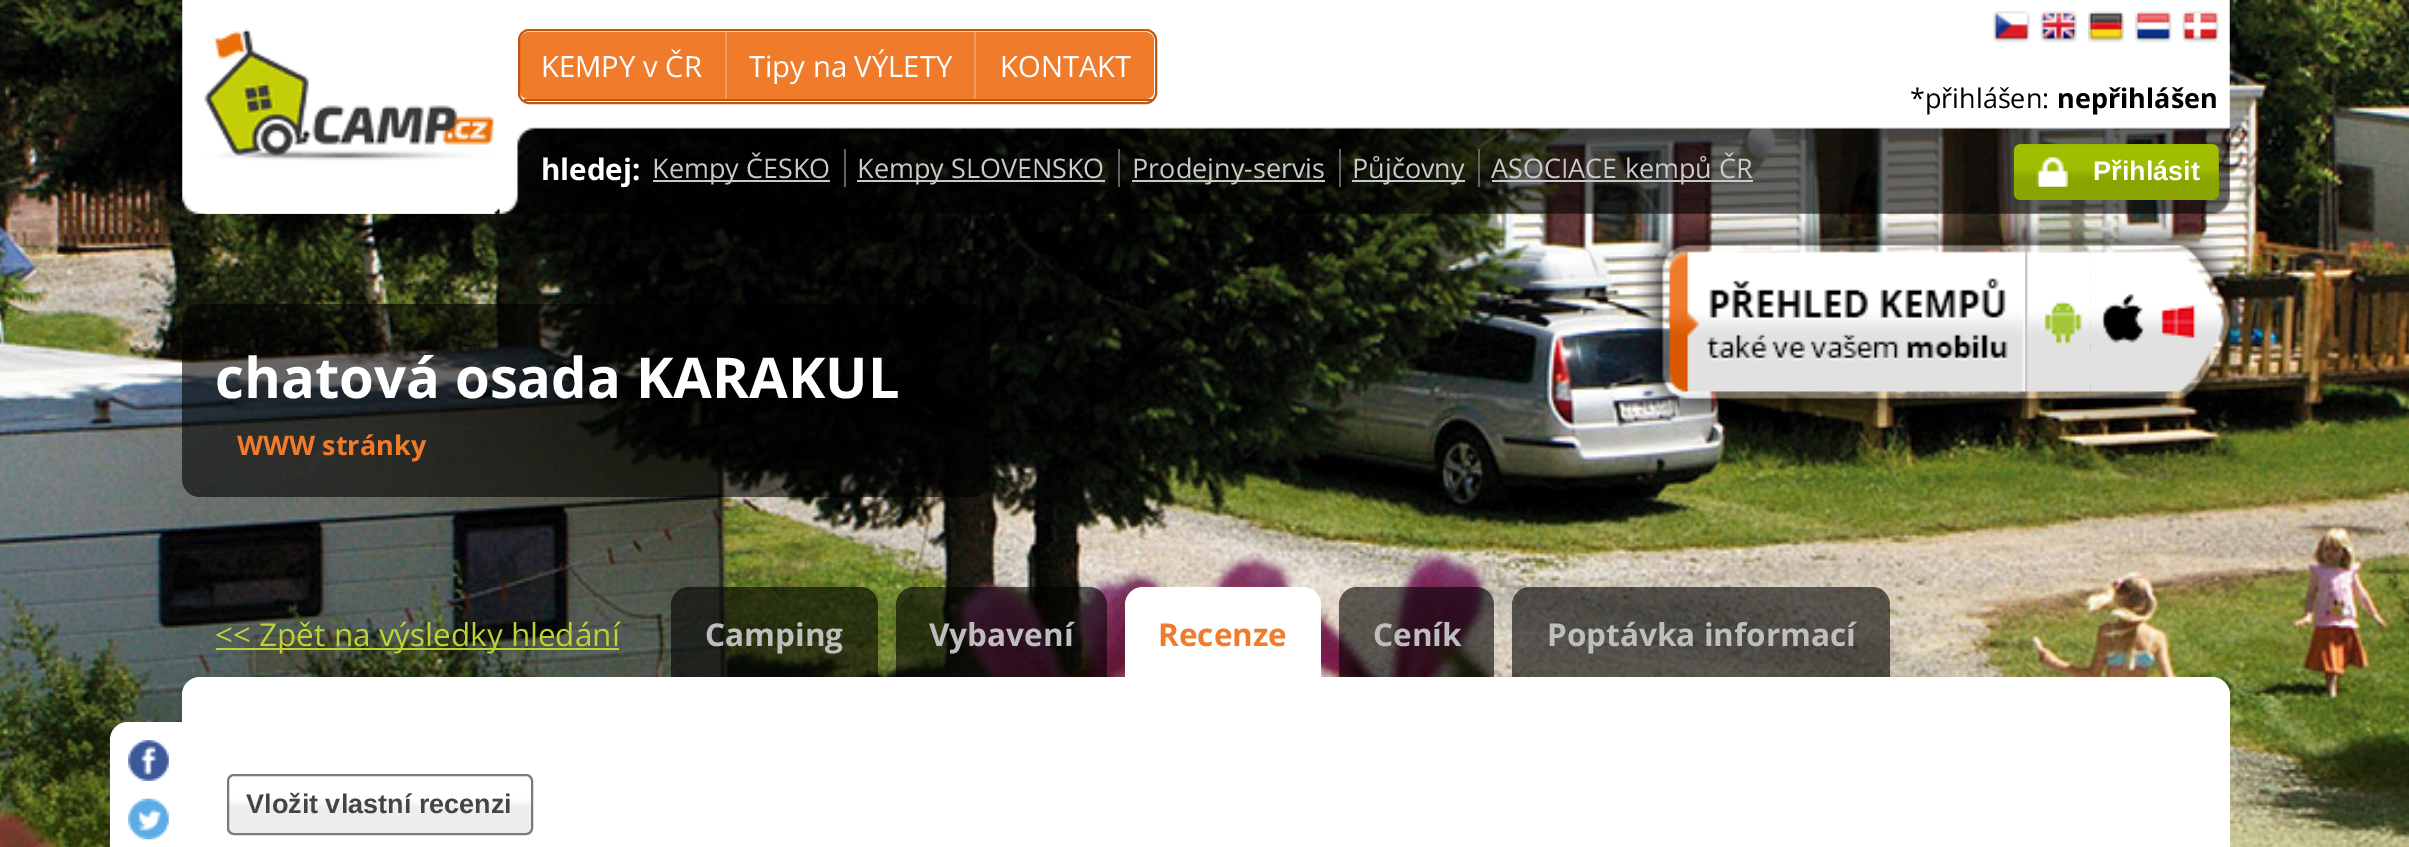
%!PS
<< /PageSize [2409 847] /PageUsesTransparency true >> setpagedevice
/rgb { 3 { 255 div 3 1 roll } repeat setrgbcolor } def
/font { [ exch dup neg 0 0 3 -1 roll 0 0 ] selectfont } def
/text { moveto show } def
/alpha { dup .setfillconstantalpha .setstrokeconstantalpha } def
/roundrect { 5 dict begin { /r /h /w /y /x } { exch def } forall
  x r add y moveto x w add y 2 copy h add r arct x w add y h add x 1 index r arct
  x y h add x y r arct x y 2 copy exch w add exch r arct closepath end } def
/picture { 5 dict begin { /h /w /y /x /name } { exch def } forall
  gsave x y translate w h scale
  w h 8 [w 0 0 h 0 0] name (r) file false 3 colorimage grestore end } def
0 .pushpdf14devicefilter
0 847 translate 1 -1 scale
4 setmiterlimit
255 255 255 rgb
0 0 2409 847 rectfill
(img_01.rgb) 0 0 2409 847 picture
(img_02.rgb) 182 0 2048 214 picture
(img_03.rgb) 204 28 296 186 picture
240 123 43 rgb
529 32 moveto 616 0 rlineto 5 0 9 4 9 8 rcurveto 0 52 rlineto 0 4 -4 7 -9 7 rcurveto -616 0 rlineto -5 0 -9 -3 -9 -7 rcurveto 0 -52 rlineto 0 -4 4 -8 9 -8 rcurveto closepath fill
193 86 14 rgb
2 setlinewidth
519 30 637 73 10 roundrect stroke
524 99 628 2 rectfill
243 153 91 rgb
725 32 2 67 rectfill
974 32 2 67 rectfill
(img_04.rgb) 1993 11 37 32 picture
(img_05.rgb) 2040 11 37 32 picture
(img_06.rgb) 2088 11 36 32 picture
(img_07.rgb) 2135 11 37 32 picture
(img_08.rgb) 2182 11 37 32 picture
202 202 202 rgb
653 180 177 2 rectfill
100 100 100 rgb
844 149 2 38 rectfill
202 202 202 rgb
857 180 248 2 rectfill
100 100 100 rgb
1118 149 2 38 rectfill
202 202 202 rgb
1132 180 193 2 rectfill
100 100 100 rgb
1339 149 2 38 rectfill
202 202 202 rgb
1352 180 113 2 rectfill
100 100 100 rgb
1478 149 2 38 rectfill
202 202 202 rgb
1492 180 261 2 rectfill
139 165 0 rgb
2014 144 205 56 7 roundrect fill
(img_09.rgb) 2013 144 206 56 picture
(img_10.rgb) 2036 157 32 30 picture
0.6 alpha
0 0 0 rgb
182 304 808 193 18 roundrect fill
1 alpha
(img_11.rgb) 1636 218 389 207 picture
(img_12.rgb) 2025 218 66 204 picture
(img_13.rgb) 2090 218 61 207 picture
(img_14.rgb) 2151 218 101 199 picture
187 211 55 rgb
216 648 403 2 rectfill
0.6 alpha
0 0 0 rgb
689 587 moveto 171 0 rlineto 10 0 18 8 18 18 rcurveto 0 88 rlineto -207 0 rlineto 0 -88 rlineto 0 -10 8 -18 18 -18 rcurveto closepath fill
914 587 moveto 175 0 rlineto 10 0 18 8 18 18 rcurveto 0 88 rlineto -211 0 rlineto 0 -88 rlineto 0 -10 8 -18 18 -18 rcurveto closepath fill
1 alpha
255 255 255 rgb
1143 587 moveto 160 0 rlineto 10 0 18 8 18 18 rcurveto 0 90 rlineto -196 0 rlineto 0 -90 rlineto 0 -10 8 -18 18 -18 rcurveto closepath fill
0.6 alpha
0 0 0 rgb
1357 587 moveto 119 0 rlineto 10 0 18 8 18 18 rcurveto 0 88 rlineto -155 0 rlineto 0 -88 rlineto 0 -10 8 -18 18 -18 rcurveto closepath fill
1530 587 moveto 342 0 rlineto 10 0 18 8 18 18 rcurveto 0 88 rlineto -378 0 rlineto 0 -88 rlineto 0 -10 8 -18 18 -18 rcurveto closepath fill
1 alpha
255 255 255 rgb
182 677 2048 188 18 roundrect fill
128 722 moveto 54 0 rlineto 0 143 rlineto -54 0 rlineto -10 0 -18 -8 -18 -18 rcurveto 0 -107 rlineto 0 -10 8 -18 18 -18 rcurveto closepath fill
(img_15.rgb) 128 740 41 41 picture
(img_16.rgb) 128 798 41 42 picture
238 238 238 rgb
227 774 306 61 7 roundrect fill
(img_17.rgb) 227 776 306 30 picture
122 122 122 rgb
228 775 304 59 6 roundrect stroke
/OpenSans-Regular 29.25 font
255 255 255 rgb
(KEMPY v ČR) 541 77 text
(Tipy na VÝLETY) 749 77 text
(KONTAKT) 1000 77 text
/OpenSans-Bold 29.5 font
(hledej:) 541 180 text
/OpenSans-Regular 27 font
202 202 202 rgb
(Kempy ČESKO) 652 178 text
(Kempy SLOVENSKO) 857 178 text
(Prodejny-servis) 1132 178 text
(Půjčovny) 1352 178 text
(ASOCIACE kempů ČR) 1491 178 text
0 0 0 rgb
(*přihlášen:) 1910 108 text
/OpenSans-Bold 27 font
(nepřihlášen) 2057 108 text
/LiberationSans-Bold 27 font
255 255 255 rgb
(Přihlásit) 2093 180 text
/OpenSans-Bold 56.25 font
(chatová osada KARAKUL) 215 398 text
/OpenSans-Bold 27 font
240 123 43 rgb
(WWW stránky) 237 455 text
/OpenSans-Regular 31.5 font
187 211 55 rgb
(<< Zpět na výsledky hledání) 215 646 text
/OpenSans-Bold 31.5 font
190 190 190 rgb
(Camping) 705 646 text
(Vybavení) 929 646 text
240 123 43 rgb
(Recenze) 1158 646 text
190 190 190 rgb
(Ceník) 1373 646 text
(Poptávka informací) 1547 646 text
/LiberationSans-Bold 27 font
68 68 68 rgb
(Vložit vlastní recenzi) 246 813 text
.poppdf14devicefilter showpage
